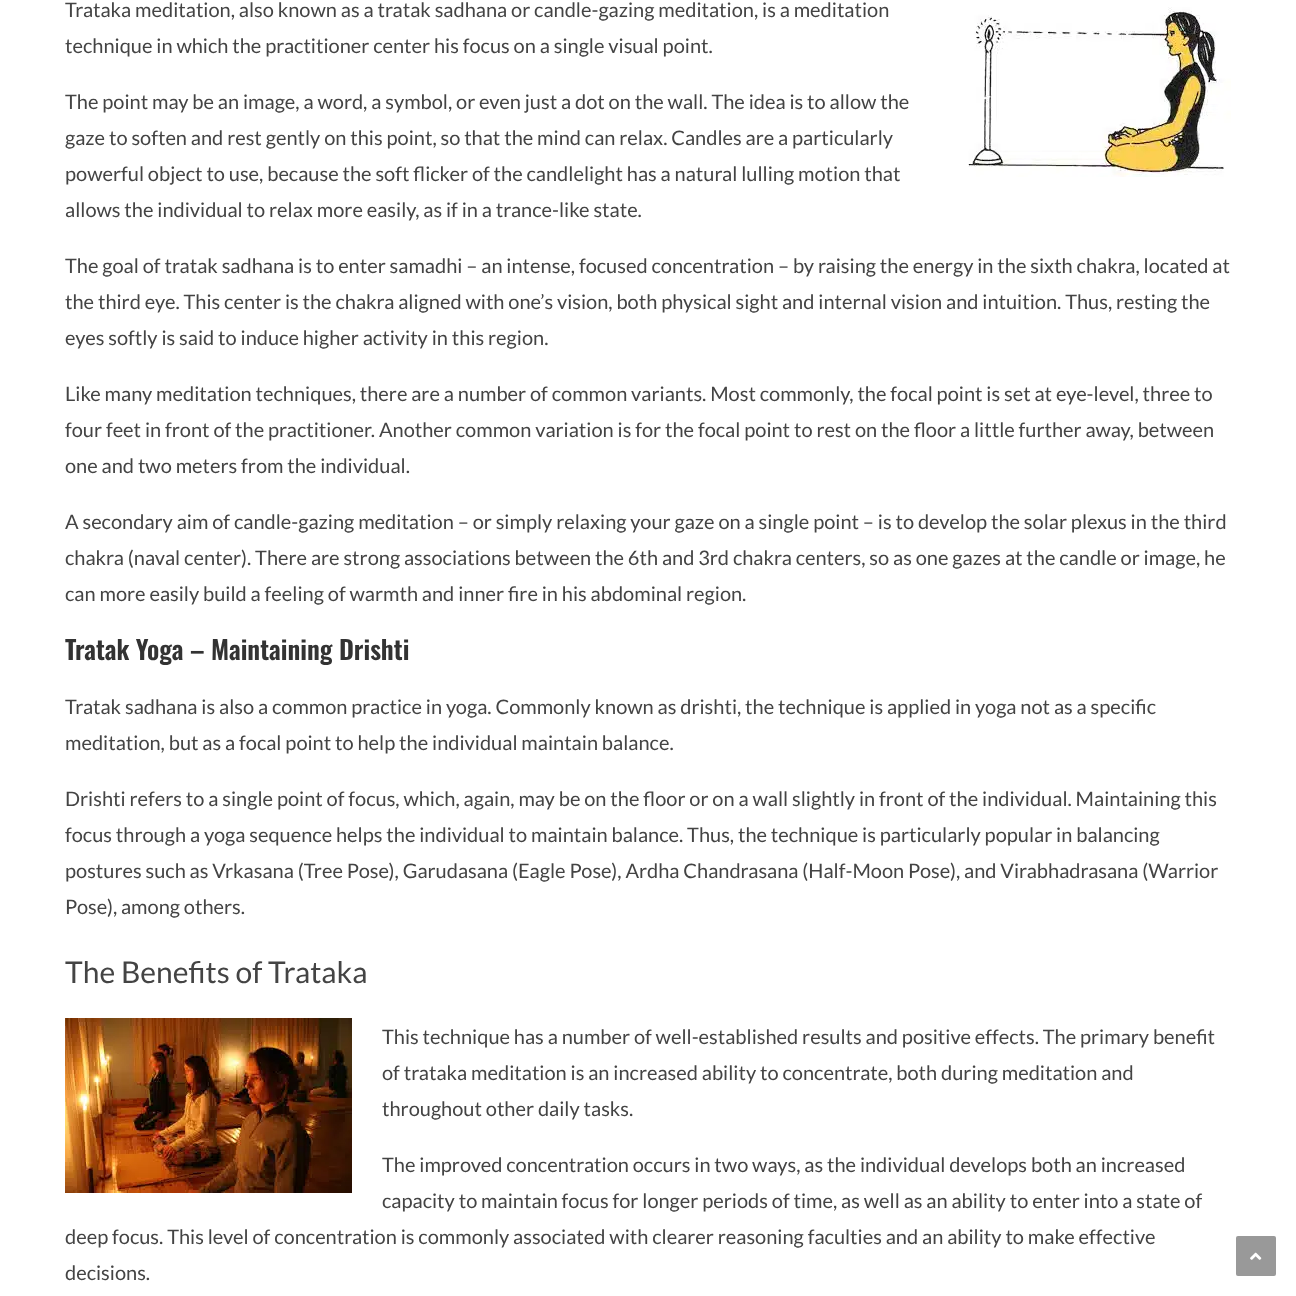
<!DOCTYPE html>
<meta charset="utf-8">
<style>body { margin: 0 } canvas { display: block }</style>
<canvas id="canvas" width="1296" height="1296"></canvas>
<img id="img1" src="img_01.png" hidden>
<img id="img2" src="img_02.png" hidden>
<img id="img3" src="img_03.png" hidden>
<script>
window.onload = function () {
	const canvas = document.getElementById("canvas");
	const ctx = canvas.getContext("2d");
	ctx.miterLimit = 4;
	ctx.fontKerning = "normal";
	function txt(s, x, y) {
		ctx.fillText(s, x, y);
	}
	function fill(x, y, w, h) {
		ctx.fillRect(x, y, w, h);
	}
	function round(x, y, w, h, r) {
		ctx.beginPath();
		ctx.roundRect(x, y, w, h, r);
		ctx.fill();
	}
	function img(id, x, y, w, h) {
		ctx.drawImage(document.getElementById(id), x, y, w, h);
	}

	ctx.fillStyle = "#FFFFFF";
	fill(0, 0, 1296, 1296);
	img("img1", 968, 7, 263, 170);
	img("img2", 65, 1018, 287, 175);
	ctx.fillStyle = "#999999";
	round(1236, 1236, 40, 40, 2);
	img("img3", 1250, 1252, 12, 8);
	ctx.font = "20px Lato";
	ctx.fillStyle = "#444444";
	txt("Trataka meditation, also known as a tratak sadhana or candle-gazing meditation, is a meditation", 65, 17);
	txt("technique in which the practitioner center his focus on a single visual point.", 65, 53);
	txt("The point may be an image, a word, a symbol, or even just a dot on the wall. The idea is to allow the", 65, 109);
	txt("gaze to soften and rest gently on this point, so that the mind can relax. Candles are a particularly", 65, 145);
	txt("powerful object to use, because the soft flicker of the candlelight has a natural lulling motion that", 65, 181);
	txt("allows the individual to relax more easily, as if in a trance-like state.", 65, 217);
	txt("The goal of tratak sadhana is to enter samadhi – an intense, focused concentration – by raising the energy in the sixth chakra, located at", 65, 273);
	txt("the third eye. This center is the chakra aligned with one’s vision, both physical sight and internal vision and intuition. Thus, resting the", 65, 309);
	txt("eyes softly is said to induce higher activity in this region.", 65, 345);
	txt("Like many meditation techniques, there are a number of common variants. Most commonly, the focal point is set at eye-level, three to", 65, 401);
	txt("four feet in front of the practitioner. Another common variation is for the focal point to rest on the floor a little further away, between", 65, 437);
	txt("one and two meters from the individual.", 65, 473);
	txt("A secondary aim of candle-gazing meditation – or simply relaxing your gaze on a single point – is to develop the solar plexus in the third", 65, 529);
	txt("chakra (naval center). There are strong associations between the 6th and 3rd chakra centers, so as one gazes at the candle or image, he", 65, 565);
	txt("can more easily build a feeling of warmth and inner fire in his abdominal region.", 65, 601);
	ctx.font = "600 26px Oswald";
	ctx.fillStyle = "#333333";
	txt("Tratak Yoga – Maintaining Drishti", 65, 660);
	ctx.font = "20px Lato";
	ctx.fillStyle = "#444444";
	txt("Tratak sadhana is also a common practice in yoga. Commonly known as drishti, the technique is applied in yoga not as a specific", 65, 714);
	txt("meditation, but as a focal point to help the individual maintain balance.", 65, 750);
	txt("Drishti refers to a single point of focus, which, again, may be on the floor or on a wall slightly in front of the individual. Maintaining this", 65, 806);
	txt("focus through a yoga sequence helps the individual to maintain balance. Thus, the technique is particularly popular in balancing", 65, 842);
	txt("postures such as Vrkasana (Tree Pose), Garudasana (Eagle Pose), Ardha Chandrasana (Half-Moon Pose), and Virabhadrasana (Warrior", 65, 878);
	txt("Pose), among others.", 65, 914);
	ctx.font = "30px Lato";
	txt("The Benefits of Trataka", 65, 983);
	ctx.font = "20px Lato";
	txt("This technique has a number of well-established results and positive effects. The primary benefit", 382, 1044);
	txt("of trataka meditation is an increased ability to concentrate, both during meditation and", 382, 1080);
	txt("throughout other daily tasks.", 382, 1116);
	txt("The improved concentration occurs in two ways, as the individual develops both an increased", 382, 1172);
	txt("capacity to maintain focus for longer periods of time, as well as an ability to enter into a state of", 382, 1208);
	txt("deep focus. This level of concentration is commonly associated with clearer reasoning faculties and an ability to make effective", 65, 1244);
	txt("decisions.", 65, 1280);
};
</script>
